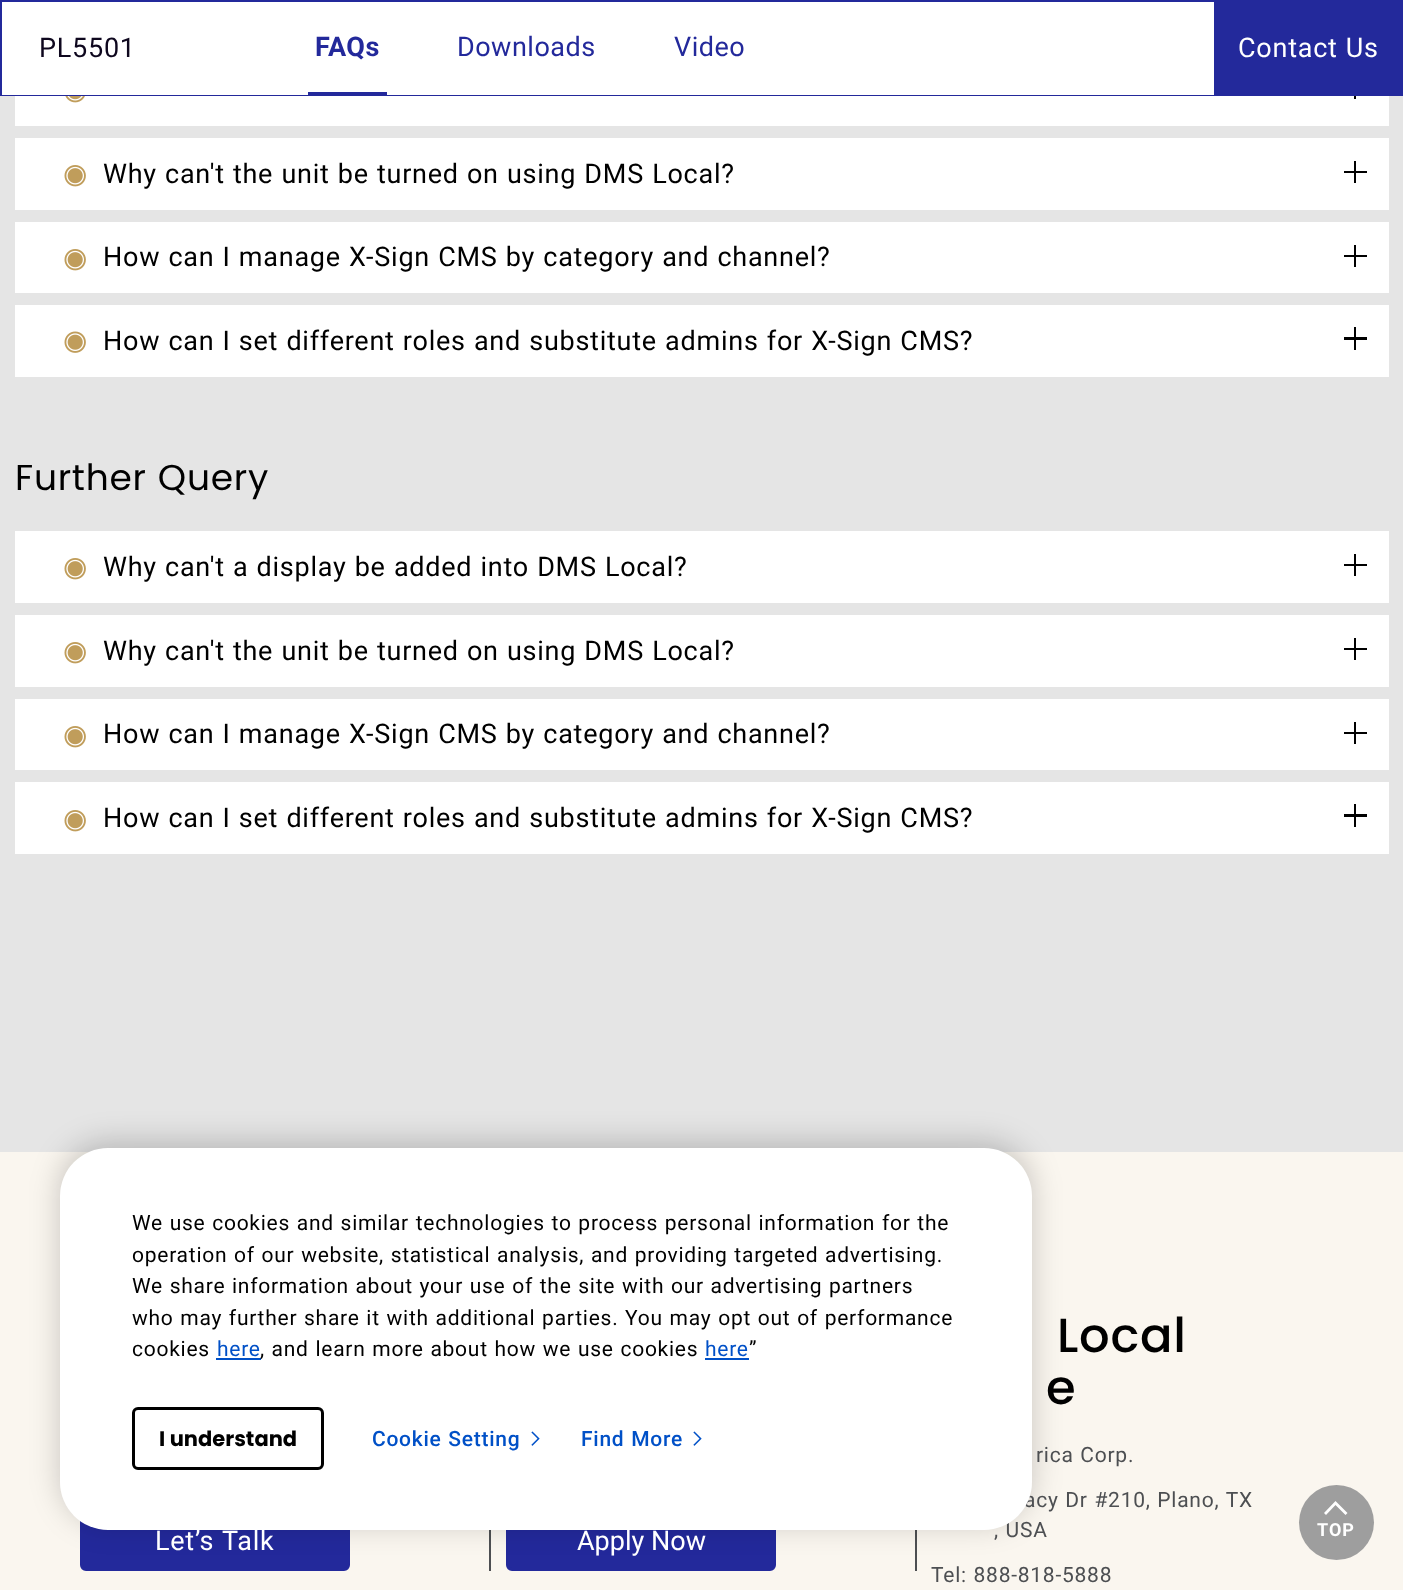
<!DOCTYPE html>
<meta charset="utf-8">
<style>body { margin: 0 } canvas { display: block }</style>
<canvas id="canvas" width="1403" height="1590"></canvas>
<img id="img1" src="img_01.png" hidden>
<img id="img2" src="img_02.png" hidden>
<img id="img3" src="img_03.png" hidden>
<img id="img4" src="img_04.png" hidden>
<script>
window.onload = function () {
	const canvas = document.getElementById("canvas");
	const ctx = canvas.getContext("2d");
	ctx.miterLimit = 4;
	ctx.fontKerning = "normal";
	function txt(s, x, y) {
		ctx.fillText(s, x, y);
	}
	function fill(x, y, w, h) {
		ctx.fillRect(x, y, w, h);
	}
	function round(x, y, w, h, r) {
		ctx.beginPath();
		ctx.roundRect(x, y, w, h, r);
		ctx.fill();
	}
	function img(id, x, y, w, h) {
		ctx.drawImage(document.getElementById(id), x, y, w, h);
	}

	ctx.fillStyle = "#FAF6EF";
	fill(0, 0, 1403, 1590);
	ctx.strokeStyle = "#23299B";
	ctx.lineWidth = 2;
	ctx.strokeRect(1, 1, 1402, 94);
	ctx.fillStyle = "#FFFFFF";
	fill(2, 2, 1212, 93);
	ctx.fillStyle = "#23299B";
	fill(308, 92, 79, 3);
	fill(1214, 2, 188, 92);
	ctx.fillStyle = "#E5E5E5";
	fill(0, 96, 1403, 1056);
	ctx.fillStyle = "#FFFFFF";
	fill(15, 96, 1374, 30);
	img("img1", 65, 96, 20, 7);
	ctx.fillStyle = "#000000";
	fill(1354, 96, 2, 3);
	ctx.fillStyle = "#FFFFFF";
	fill(15, 138, 1374, 72);
	img("img2", 64, 165, 22, 22);
	ctx.fillStyle = "#000000";
	fill(1354, 161, 2, 22);
	fill(1344, 171, 23, 2);
	ctx.fillStyle = "#FFFFFF";
	fill(15, 222, 1374, 71);
	img("img2", 64, 249, 22, 22);
	ctx.fillStyle = "#000000";
	fill(1354, 245, 2, 22);
	fill(1344, 255, 23, 2);
	ctx.fillStyle = "#FFFFFF";
	fill(15, 305, 1374, 72);
	img("img3", 64, 331, 22, 22);
	ctx.fillStyle = "#000000";
	fill(1354, 327, 2, 23);
	fill(1344, 337, 23, 3);
	ctx.fillStyle = "#FFFFFF";
	fill(15, 531, 1374, 72);
	img("img2", 64, 558, 22, 22);
	ctx.fillStyle = "#000000";
	fill(1354, 554, 2, 22);
	fill(1344, 564, 23, 2);
	ctx.fillStyle = "#FFFFFF";
	fill(15, 615, 1374, 72);
	img("img2", 64, 642, 22, 22);
	ctx.fillStyle = "#000000";
	fill(1354, 638, 2, 22);
	fill(1344, 648, 23, 2);
	ctx.fillStyle = "#FFFFFF";
	fill(15, 699, 1374, 71);
	img("img2", 64, 726, 22, 22);
	ctx.fillStyle = "#000000";
	fill(1354, 722, 2, 22);
	fill(1344, 732, 23, 2);
	ctx.fillStyle = "#FFFFFF";
	fill(15, 782, 1374, 72);
	img("img2", 64, 810, 22, 22);
	ctx.fillStyle = "#000000";
	fill(1354, 804, 2, 23);
	fill(1344, 814, 23, 3);
	ctx.fillStyle = "#23299B";
	ctx.beginPath();
	ctx.roundRect(81.5, 1512.5, 267, 57, 4.5);
	ctx.fill();
	ctx.lineWidth = 3;
	ctx.stroke();
	ctx.fillStyle = "#4D4F52";
	fill(489, 1530, 2, 41);
	ctx.fillStyle = "#23299B";
	ctx.beginPath();
	ctx.roundRect(507.5, 1512.5, 267, 57, 4.5);
	ctx.fill();
	ctx.stroke();
	ctx.fillStyle = "#4D4F52";
	fill(915, 1530, 2, 41);
	ctx.fillStyle = "rgba(0, 0, 0, 0.2)";
	ctx.filter = "blur(15px)";
	ctx.beginPath();
	ctx.roundRect(60, 1142, 972, 382, 48);
	ctx.fill();
	ctx.filter = "none";
	ctx.fillStyle = "#9E9E9E";
	ctx.beginPath();
	ctx.arc(1336.5, 1522.5, 37.5, 0, Math.PI * 2);
	ctx.fill();
	ctx.fillStyle = "#FFFFFF";
	ctx.beginPath();
	ctx.moveTo(1335.5, 1505);
	ctx.lineTo(1326, 1515);
	ctx.lineTo(1324, 1513);
	ctx.lineTo(1335.5, 1501);
	ctx.lineTo(1347.5, 1513);
	ctx.lineTo(1345.5, 1515);
	ctx.closePath();
	ctx.fill("evenodd");
	ctx.letterSpacing = "0.75px";
	ctx.font = "27px Roboto";
	ctx.fillStyle = "#0E071E";
	txt("PL5501", 39, 57);
	ctx.letterSpacing = "0.5px";
	ctx.font = "bold 27px Roboto";
	ctx.fillStyle = "#23299B";
	txt("FAQs", 315, 56);
	ctx.font = "27px Roboto";
	txt("Downloads", 457, 56);
	txt("Video", 674, 56);
	ctx.letterSpacing = "0.75px";
	ctx.wordSpacing = "0.75px";
	ctx.fillStyle = "#FFFFFF";
	txt("Contact Us", 1238, 57);
	ctx.fillStyle = "#000000";
	txt("Why can't the unit be turned on using DMS Local?", 103, 183);
	txt("How can I manage X-Sign CMS by category and channel?", 103, 266);
	txt("How can I set different roles and substitute admins for X-Sign CMS?", 103, 350);
	ctx.font = "36px Poppins";
	txt("Further Query", 15, 490);
	ctx.font = "27px Roboto";
	txt("Why can't a display be added into DMS Local?", 103, 576);
	txt("Why can't the unit be turned on using DMS Local?", 103, 660);
	txt("How can I manage X-Sign CMS by category and channel?", 103, 743);
	txt("How can I set different roles and substitute admins for X-Sign CMS?", 103, 827);
	ctx.fillStyle = "#FFFFFF";
	txt("Let’s Talk", 155, 1550);
	ctx.letterSpacing = "0px";
	ctx.wordSpacing = "0px";
	txt("Apply Now", 577, 1550);
	ctx.letterSpacing = "0.75px";
	ctx.wordSpacing = "0.75px";
	ctx.font = "500 48px Poppins";
	ctx.fillStyle = "#000000";
	txt("Local", 1057, 1352);
	ctx.wordSpacing = "0px";
	txt("e", 1046, 1404);
	ctx.wordSpacing = "0.75px";
	ctx.font = "21px Roboto";
	ctx.fillStyle = "#4D4F52";
	txt("rica Corp.", 1036, 1462);
	txt("acy Dr #210, Plano, TX", 1024, 1507);
	txt(", USA", 994, 1537);
	ctx.fillStyle = "#FFFFFF";
	round(60, 1148, 972, 382, 48);
	img("img4", 693, 1431, 9, 15);
	ctx.font = "500 21px Roboto";
	ctx.fillStyle = "#0050C7";
	txt("Find More", 581, 1446);
	img("img4", 531, 1431, 9, 15);
	txt("Cookie Setting", 372, 1446);
	ctx.beginPath();
	ctx.roundRect(133.5, 1408.5, 189, 60, 4.5);
	ctx.strokeStyle = "#000000";
	ctx.stroke();
	ctx.letterSpacing = "0px";
	ctx.wordSpacing = "0px";
	ctx.font = "bold 21px Poppins";
	ctx.fillStyle = "#000000";
	txt("I understand", 159, 1446);
	ctx.letterSpacing = "0.75px";
	ctx.font = "21px Roboto";
	txt("”", 749, 1356);
	ctx.fillStyle = "#0050C7";
	txt("here", 705, 1356);
	fill(705, 1358, 44, 2);
	fill(216, 1358, 45, 2);
	ctx.wordSpacing = "0.75px";
	ctx.fillStyle = "#000000";
	txt(", and learn more about how we use cookies", 260, 1356);
	ctx.wordSpacing = "0px";
	ctx.fillStyle = "#0050C7";
	txt("here", 217, 1356);
	ctx.fillStyle = "#000000";
	txt("cookies", 132, 1356);
	ctx.wordSpacing = "0.75px";
	txt("who may further share it with additional parties. You may opt out of performance", 132, 1325);
	txt("We share information about your use of the site with our advertising partners", 132, 1293);
	txt("operation of our website, statistical analysis, and providing targeted advertising.", 132, 1262);
	txt("We use cookies and similar technologies to process personal information for the", 132, 1230);
	ctx.fillStyle = "#4D4F52";
	txt("Tel: 888-818-5888", 931, 1582);
	ctx.letterSpacing = "1px";
	ctx.wordSpacing = "0px";
	ctx.font = "bold 18px Roboto";
	ctx.fillStyle = "#FFFFFF";
	txt("TOP", 1317, 1536);
};
</script>
